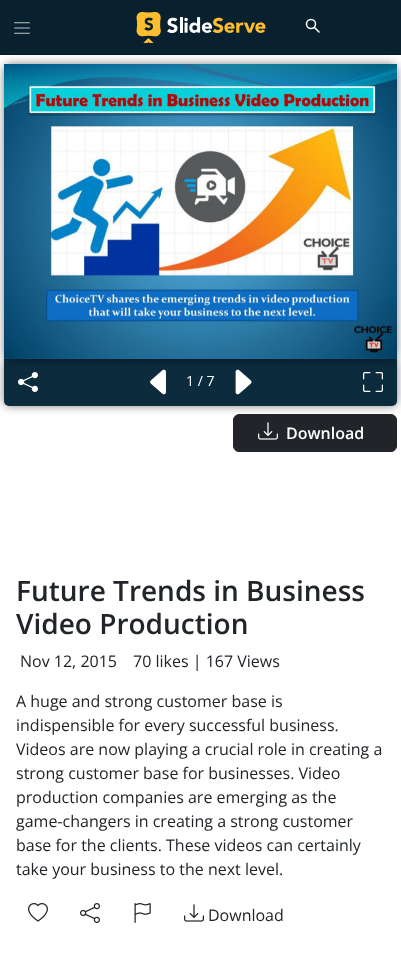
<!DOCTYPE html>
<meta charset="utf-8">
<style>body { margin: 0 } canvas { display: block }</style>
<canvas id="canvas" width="401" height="959"></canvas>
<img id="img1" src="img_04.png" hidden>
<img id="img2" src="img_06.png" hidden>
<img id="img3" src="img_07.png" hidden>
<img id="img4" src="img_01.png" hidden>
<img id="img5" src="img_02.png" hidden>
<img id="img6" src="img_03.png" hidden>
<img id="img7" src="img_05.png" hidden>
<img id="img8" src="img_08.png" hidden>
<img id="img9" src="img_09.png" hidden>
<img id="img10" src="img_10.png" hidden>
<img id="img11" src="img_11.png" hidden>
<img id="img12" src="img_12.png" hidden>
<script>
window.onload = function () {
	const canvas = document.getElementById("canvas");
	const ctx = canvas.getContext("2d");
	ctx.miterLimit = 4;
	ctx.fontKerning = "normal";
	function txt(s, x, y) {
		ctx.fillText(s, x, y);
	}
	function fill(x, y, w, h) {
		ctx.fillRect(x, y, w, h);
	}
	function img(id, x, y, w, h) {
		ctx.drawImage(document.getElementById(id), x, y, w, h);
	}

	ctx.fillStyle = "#FFFFFF";
	fill(0, 0, 401, 959);
	ctx.fillStyle = "rgba(0, 0, 0, 0.5)";
	ctx.filter = "blur(5px)";
	ctx.beginPath();
	ctx.roundRect(4, 359, 393, 47, 5);
	ctx.fill();
	ctx.filter = "none";
	ctx.fillStyle = "#0C2B3D";
	ctx.beginPath();
	ctx.roundRect(4, 359, 393, 47, [0, 0, 5, 5]);
	ctx.fill();
	img("img1", 18, 372, 20, 20);
	img("img2", 235, 369, 17, 26);
	img("img3", 363, 372, 20, 20);
	ctx.fillStyle = "rgba(0, 0, 0, 0.5)";
	ctx.filter = "blur(5px)";
	ctx.beginPath();
	ctx.roundRect(4, 64, 393, 295, 7);
	ctx.fill();
	ctx.filter = "none";
	ctx.fillStyle = "#09212E";
	fill(0, 0, 401, 54);
	ctx.fillStyle = "#061924";
	fill(0, 54, 401, 1);
	img("img4", 14, 22, 16, 12);
	img("img5", 136, 11, 130, 32);
	ctx.beginPath();
	ctx.arc(311, 24, 4.5, 0, Math.PI * 2);
	ctx.strokeStyle = "#FFFFFF";
	ctx.lineWidth = 1.5;
	ctx.stroke();
	ctx.beginPath();
	ctx.moveTo(319, 32);
	ctx.lineTo(314.5, 27.5);
	ctx.lineCap = "round";
	ctx.lineJoin = "round";
	ctx.stroke();
	img("img6", 4, 64, 393, 295);
	img("img7", 150, 369, 16, 26);
	ctx.fillStyle = "#212529";
	ctx.beginPath();
	ctx.roundRect(233.5, 414.5, 163, 37, 5.5);
	ctx.fill();
	ctx.strokeStyle = "#212529";
	ctx.lineWidth = 1;
	ctx.lineJoin = "miter";
	ctx.stroke();
	img("img8", 258, 422, 20, 18);
	img("img9", 28, 903, 20, 19);
	img("img10", 80, 903, 20, 20);
	img("img11", 134, 903, 17, 20);
	img("img12", 184, 904, 20, 18);
	ctx.font = "14px Open Sans";
	ctx.fillStyle = "#FFFFFF";
	txt("1 / 7", 186, 386);
	ctx.font = "600 16px Open Sans";
	txt("Download", 286, 439);
	ctx.font = "600 28px Open Sans";
	ctx.fillStyle = "#212529";
	txt("Future Trends in Business", 16, 601);
	txt("Video Production", 16, 634);
	ctx.font = "16px Open Sans";
	txt("Nov 12, 2015", 20, 667);
	txt("70 likes | 167 Views", 133, 667);
	txt("A huge and strong customer base is", 16, 707);
	txt("indispensible for every successful business.", 16, 731);
	txt("Videos are now playing a crucial role in creating a", 16, 755);
	txt("strong customer base for businesses. Video", 16, 779);
	txt("production companies are emerging as the", 16, 803);
	txt("game-changers in creating a strong customer", 16, 827);
	txt("base for the clients. These videos can certainly", 16, 851);
	txt("take your business to the next level.", 16, 875);
	txt("Download", 208, 921);
};
</script>
